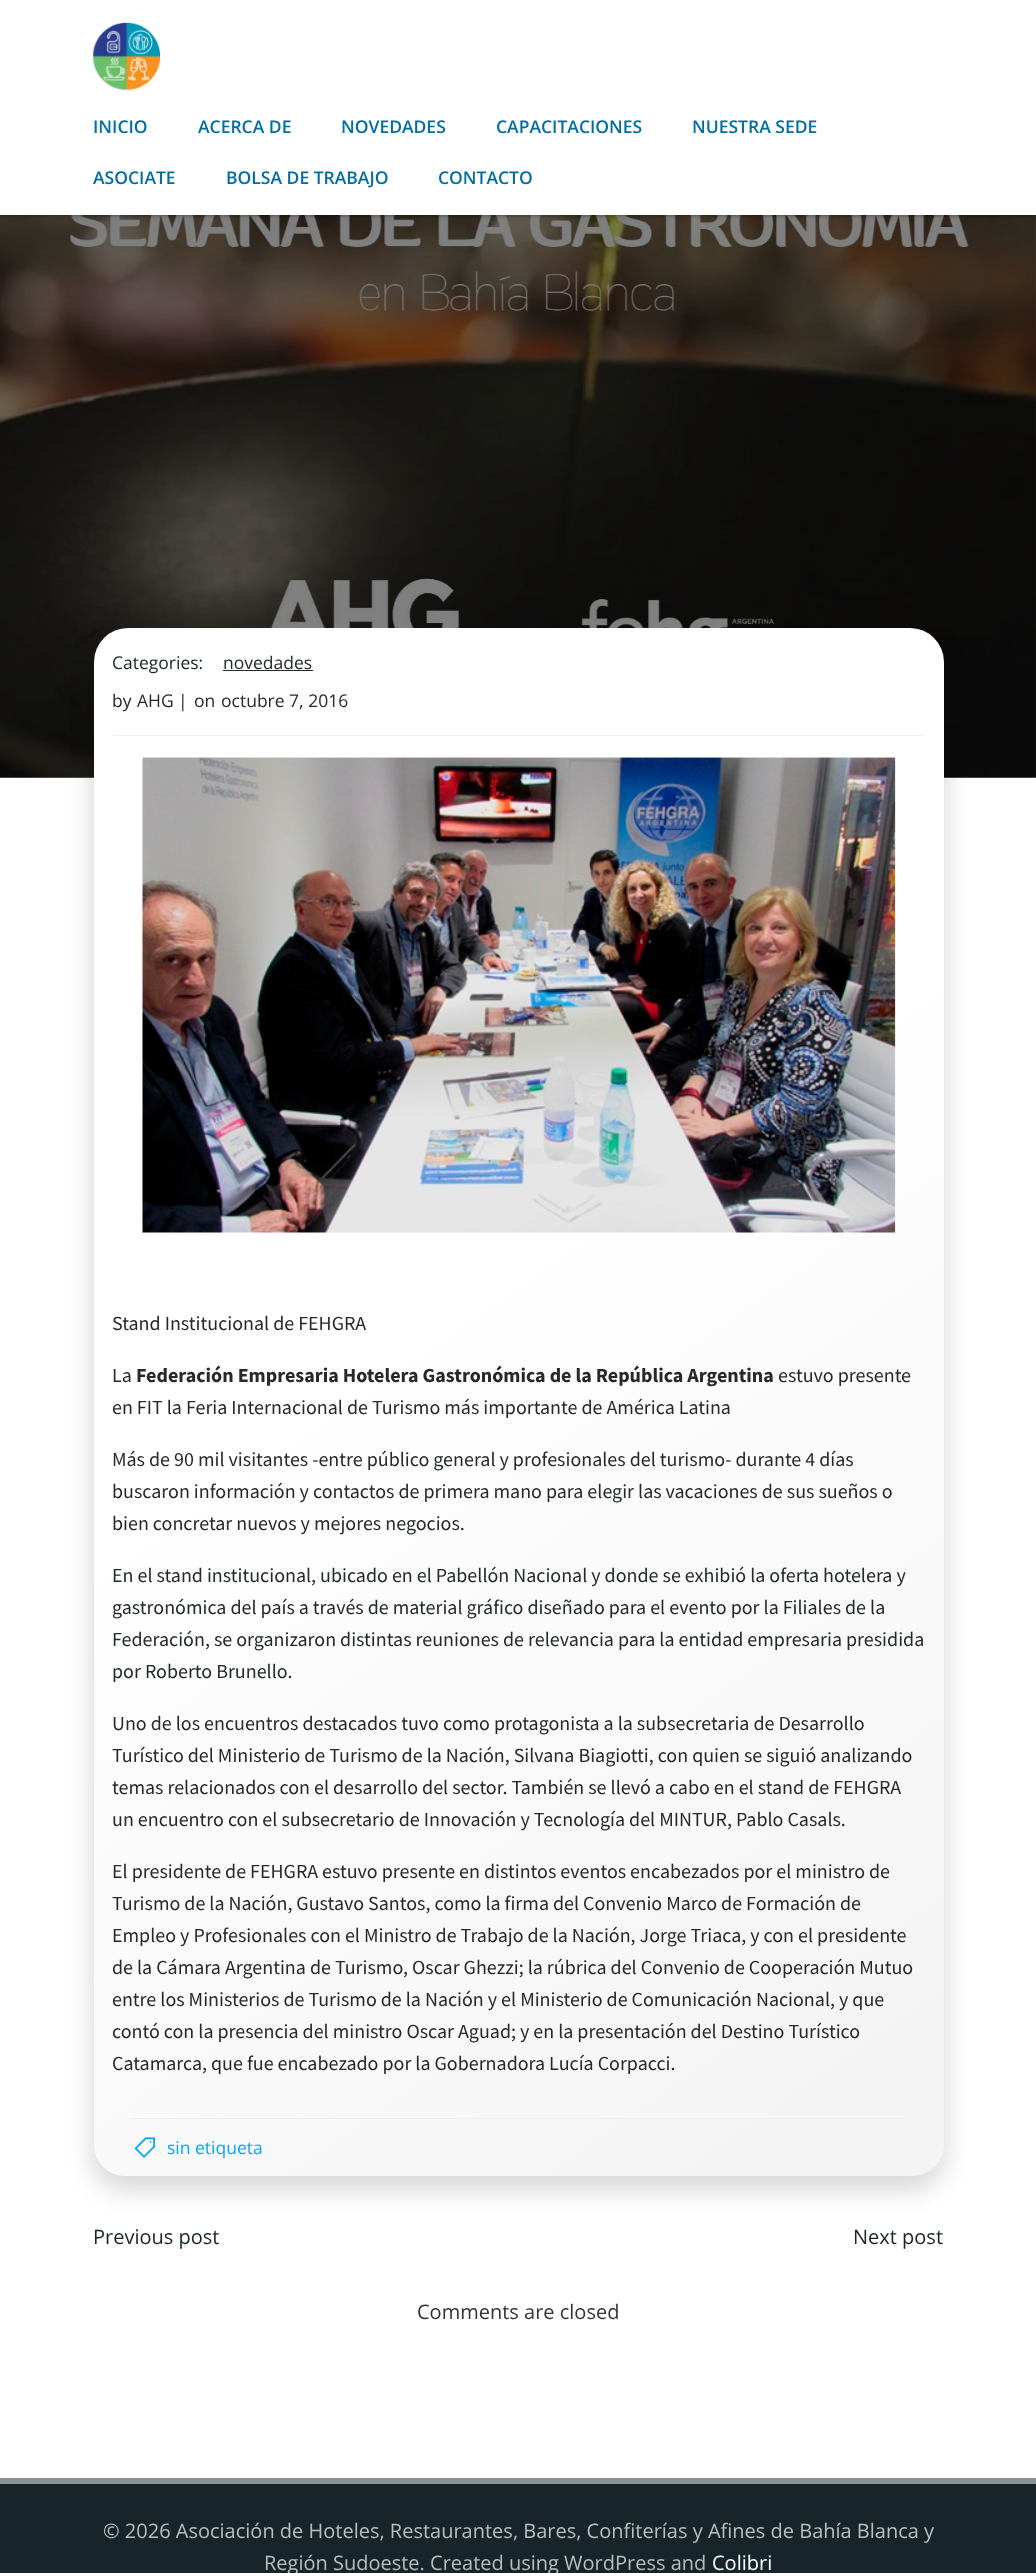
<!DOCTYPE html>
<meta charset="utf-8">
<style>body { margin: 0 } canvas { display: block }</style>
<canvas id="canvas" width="1036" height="2573"></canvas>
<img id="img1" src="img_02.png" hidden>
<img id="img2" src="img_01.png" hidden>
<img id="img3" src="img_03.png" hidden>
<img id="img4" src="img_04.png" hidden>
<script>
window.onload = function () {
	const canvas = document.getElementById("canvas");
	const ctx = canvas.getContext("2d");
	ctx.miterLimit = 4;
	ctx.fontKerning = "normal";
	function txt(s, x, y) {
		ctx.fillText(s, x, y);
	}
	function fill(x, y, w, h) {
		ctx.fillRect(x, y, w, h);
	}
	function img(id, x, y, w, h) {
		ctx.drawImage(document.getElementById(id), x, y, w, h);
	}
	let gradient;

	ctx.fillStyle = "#FFFFFF";
	fill(0, 0, 1036, 2573);
	ctx.fillStyle = "#808080";
	fill(0, 215, 1036, 563);
	img("img1", 0, 215, 1036, 563);
	ctx.fillStyle = "rgba(0, 0, 0, 0.5)";
	ctx.filter = "blur(2.5px)";
	ctx.beginPath();
	ctx.rect(0, 0, 1036, 215);
	ctx.fill();
	ctx.filter = "none";
	ctx.fillStyle = "#FFFFFF";
	fill(0, 0, 1036, 215);
	img("img2", 92, 22, 69, 69);
	ctx.save();
	ctx.beginPath();
	ctx.rect(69, 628, 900, 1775);
	ctx.clip();
	ctx.fillStyle = "rgba(0, 0, 0, 0.15)";
	ctx.filter = "blur(12.5px)";
	ctx.beginPath();
	ctx.roundRect(91, 638, 855, 1553, 36);
	ctx.fill();
	ctx.filter = "none";
	ctx.restore();
	gradient = ctx.createLinearGradient(15, 683, 1022, 2121);
	gradient.addColorStop(0.42, "#FFFFFF");
	gradient.addColorStop(1, "#F3F3F3");
	ctx.fillStyle = gradient;
	ctx.beginPath();
	ctx.roundRect(94, 628, 850, 1548, [34, 34, 31, 31]);
	ctx.fill();
	ctx.fillStyle = "#EEEEEE";
	fill(113, 735, 812, 1);
	ctx.fillStyle = "#25292A";
	fill(223, 670, 90, 1);
	img("img3", 142, 757, 754, 476);
	ctx.fillStyle = "#EEEEEE";
	fill(131, 2118, 775, 1);
	img("img4", 134, 2137, 21, 21);
	ctx.fillStyle = "#17252A";
	fill(0, 2484, 1036, 89);
	ctx.fillStyle = "#8B9295";
	fill(0, 2478, 1036, 6);
	ctx.font = "600 17.5px Open Sans";
	ctx.fillStyle = "#026E9F";
	txt("INICIO", 93, 133);
	txt("ACERCA DE", 198, 133);
	txt("NOVEDADES", 341, 133);
	txt("CAPACITACIONES", 496, 133);
	txt("NUESTRA SEDE", 692, 133);
	txt("ASOCIATE", 93, 184);
	txt("BOLSA DE TRABAJO", 226, 184);
	txt("CONTACTO", 438, 184);
	ctx.font = "17.5px Open Sans";
	ctx.fillStyle = "#17252A";
	txt("Categories:", 112, 669);
	ctx.fillStyle = "#25292A";
	txt("novedades", 223, 669);
	txt("by", 112, 707);
	txt("AHG", 137, 707);
	ctx.fillStyle = "#17252A";
	txt("|", 178, 707);
	ctx.fillStyle = "#25292A";
	txt("on", 194, 707);
	txt("octubre 7, 2016", 221, 707);
	ctx.font = "20px Source Sans Pro";
	txt("Stand Institucional de FEHGRA", 112, 1330);
	txt("La", 112, 1382);
	ctx.font = "bold 20px Source Sans Pro";
	txt("Federación Empresaria Hotelera Gastronómica de la República Argentina", 136, 1382);
	ctx.font = "20px Source Sans Pro";
	txt("estuvo presente", 778, 1382);
	txt("en FIT la Feria Internacional de Turismo más importante de América Latina", 112, 1414);
	txt("Más de 90 mil visitantes -entre público general y profesionales del turismo- durante 4 días", 112, 1466);
	txt("buscaron información y contactos de primera mano para elegir las vacaciones de sus sueños o", 112, 1498);
	txt("bien concretar nuevos y mejores negocios.", 112, 1530);
	txt("En el stand institucional, ubicado en el Pabellón Nacional y donde se exhibió la oferta hotelera y", 112, 1582);
	txt("gastronómica del país a través de material gráfico diseñado para el evento por la Filiales de la", 112, 1614);
	txt("Federación, se organizaron distintas reuniones de relevancia para la entidad empresaria presidida", 112, 1646);
	txt("por Roberto Brunello.", 112, 1678);
	txt("Uno de los encuentros destacados tuvo como protagonista a la subsecretaria de Desarrollo", 112, 1730);
	txt("Turístico del Ministerio de Turismo de la Nación, Silvana Biagiotti, con quien se siguió analizando", 112, 1762);
	txt("temas relacionados con el desarrollo del sector. También se llevó a cabo en el stand de FEHGRA", 112, 1794);
	txt("un encuentro con el subsecretario de Innovación y Tecnología del MINTUR, Pablo Casals.", 112, 1826);
	txt("El presidente de FEHGRA estuvo presente en distintos eventos encabezados por el ministro de", 112, 1878);
	txt("Turismo de la Nación, Gustavo Santos, como la firma del Convenio Marco de Formación de", 112, 1910);
	txt("Empleo y Profesionales con el Ministro de Trabajo de la Nación, Jorge Triaca, y con el presidente", 112, 1942);
	txt("de la Cámara Argentina de Turismo, Oscar Ghezzi; la rúbrica del Convenio de Cooperación Mutuo", 112, 1974);
	txt("entre los Ministerios de Turismo de la Nación y el Ministerio de Comunicación Nacional, y que", 112, 2006);
	txt("contó con la presencia del ministro Oscar Aguad; y en la presentación del Destino Turístico", 112, 2038);
	txt("Catamarca, que fue encabezado por la Gobernadora Lucía Corpacci.", 112, 2070);
	ctx.font = "17.5px Open Sans";
	ctx.fillStyle = "#03A9F4";
	txt("sin etiqueta", 167, 2154);
	ctx.font = "20px Open Sans";
	ctx.fillStyle = "#17252A";
	txt("Previous post", 93, 2244);
	txt("Next post", 853, 2244);
	ctx.fillStyle = "#333333";
	txt("Comments are closed", 417, 2319);
	ctx.fillStyle = "#B9BEBF";
	txt("© 2026 Asociación de Hoteles, Restaurantes, Bares, Confiterías y Afines de Bahía Blanca y", 103, 2538);
	txt("Región Sudoeste. Created using WordPress and", 264, 2570);
	ctx.fillStyle = "#FFFFFF";
	txt("Colibri", 712, 2570);
};
</script>
